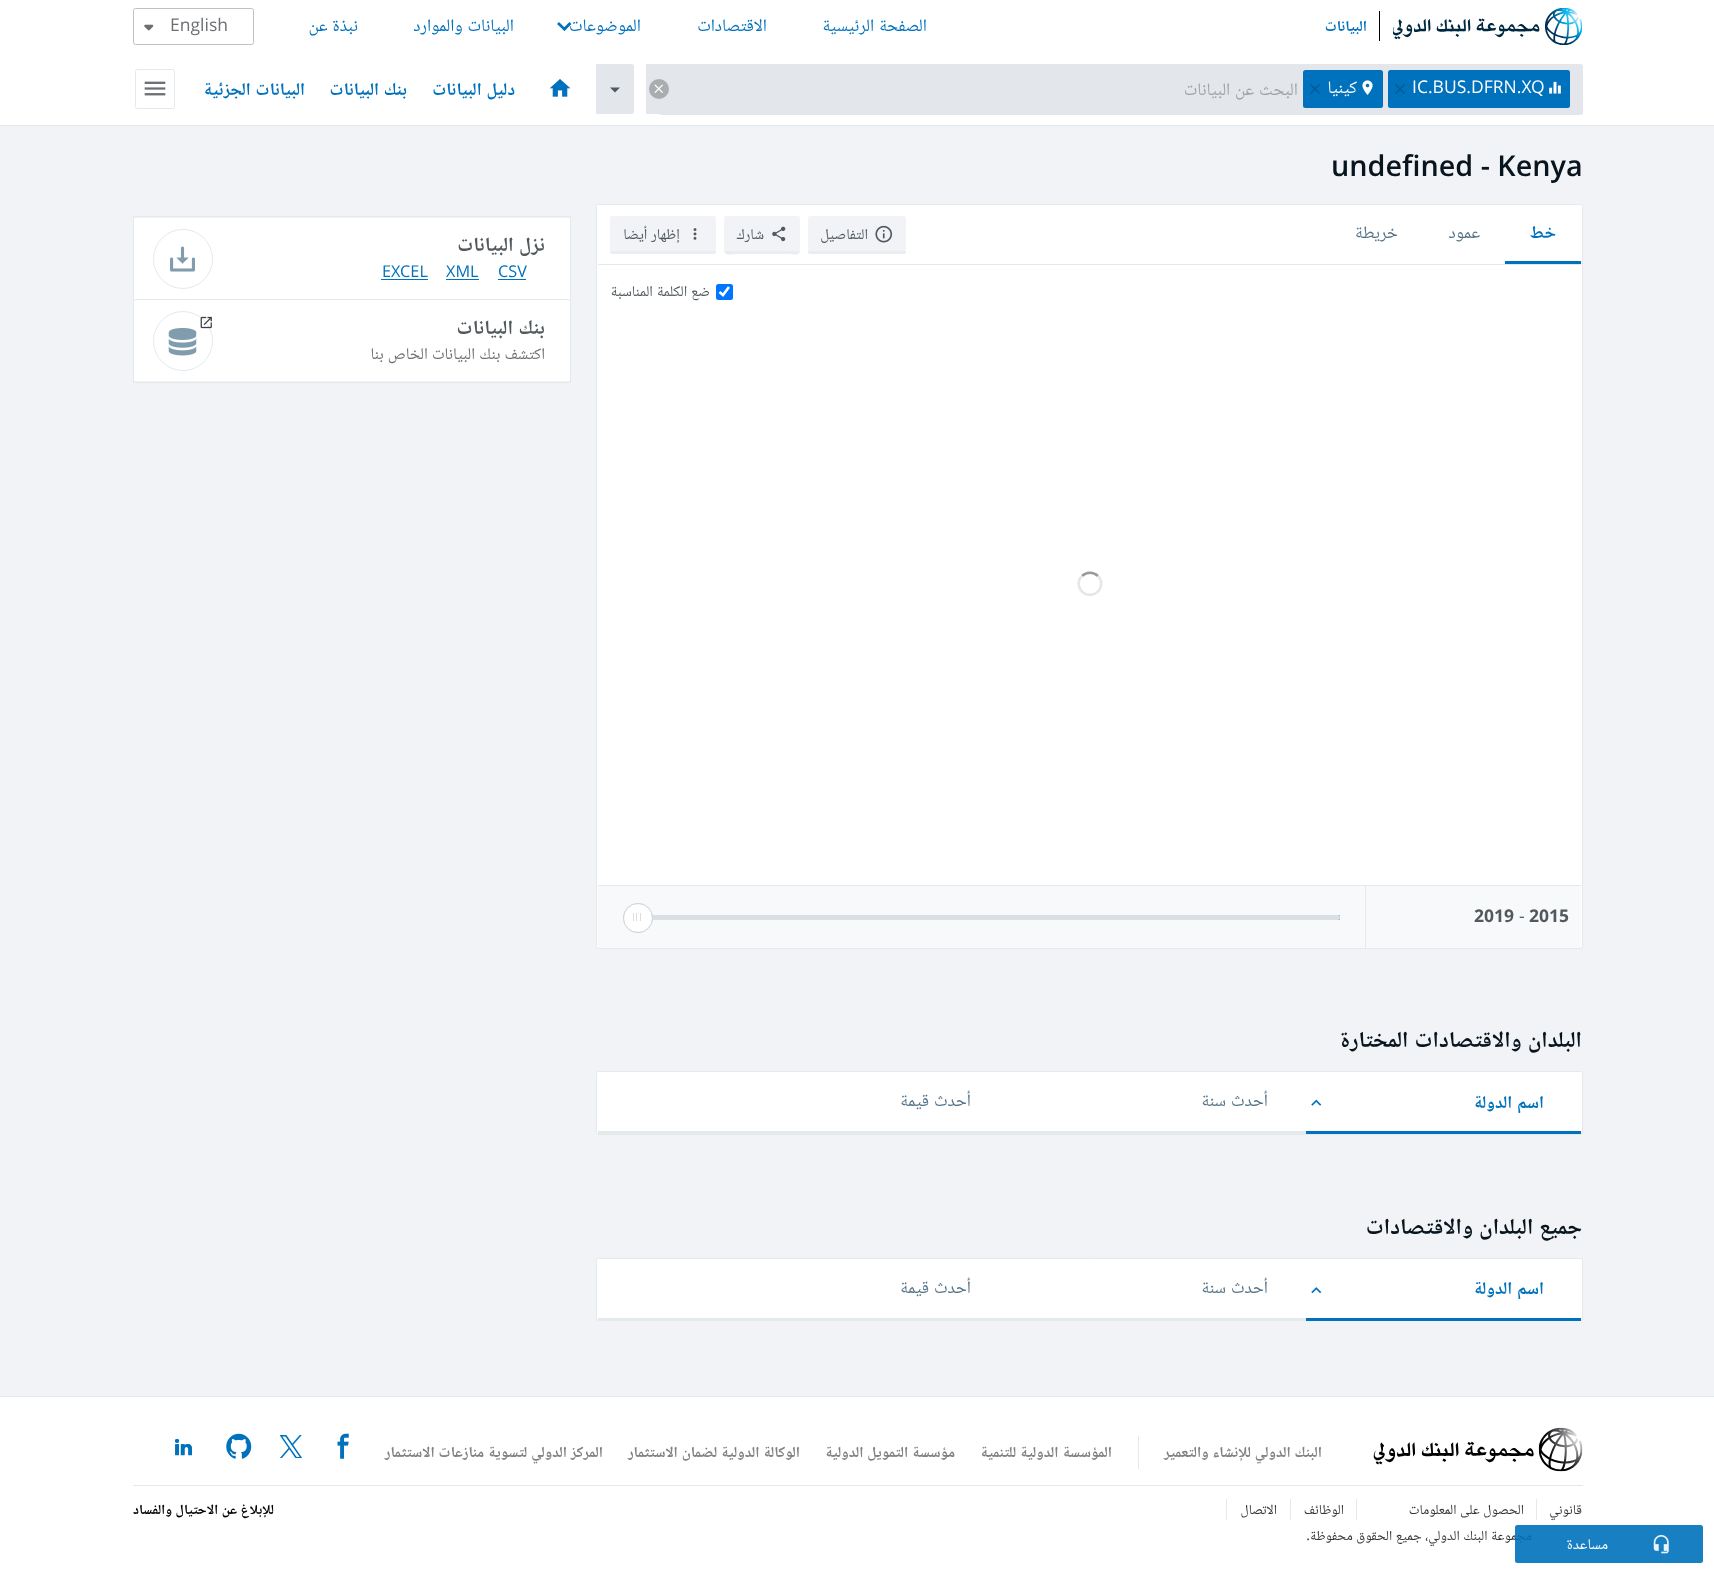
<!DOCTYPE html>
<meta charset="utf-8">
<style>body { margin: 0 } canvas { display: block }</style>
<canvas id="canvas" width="1714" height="1575"></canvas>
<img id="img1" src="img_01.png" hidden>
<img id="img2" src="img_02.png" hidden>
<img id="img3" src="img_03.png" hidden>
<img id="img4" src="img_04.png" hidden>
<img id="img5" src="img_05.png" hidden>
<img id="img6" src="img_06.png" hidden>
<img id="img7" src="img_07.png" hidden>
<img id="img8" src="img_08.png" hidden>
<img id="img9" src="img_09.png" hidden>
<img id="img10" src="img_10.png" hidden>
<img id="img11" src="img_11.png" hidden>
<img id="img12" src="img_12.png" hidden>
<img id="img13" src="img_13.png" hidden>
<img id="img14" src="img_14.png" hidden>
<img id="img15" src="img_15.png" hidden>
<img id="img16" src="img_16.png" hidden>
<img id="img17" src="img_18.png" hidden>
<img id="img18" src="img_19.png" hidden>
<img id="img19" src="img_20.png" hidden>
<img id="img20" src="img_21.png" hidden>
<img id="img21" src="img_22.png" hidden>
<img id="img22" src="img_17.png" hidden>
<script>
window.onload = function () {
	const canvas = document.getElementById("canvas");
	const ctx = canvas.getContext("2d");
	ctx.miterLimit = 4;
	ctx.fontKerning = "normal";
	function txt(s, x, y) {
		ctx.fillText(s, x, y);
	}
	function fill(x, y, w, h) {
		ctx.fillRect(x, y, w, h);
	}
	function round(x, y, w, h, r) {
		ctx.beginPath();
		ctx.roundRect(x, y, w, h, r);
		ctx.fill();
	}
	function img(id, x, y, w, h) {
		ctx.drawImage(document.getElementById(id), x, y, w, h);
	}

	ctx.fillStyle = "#F2F3F6";
	fill(0, 0, 1714, 1575);
	ctx.fillStyle = "#FFFFFF";
	fill(0, 0, 1714, 125);
	img("img1", 1393, 8, 190, 37);
	ctx.fillStyle = "#000000";
	fill(1379, 11, 1, 30);
	ctx.fillStyle = "#0071BC";
	ctx.beginPath();
	ctx.moveTo(569.5, 22);
	ctx.lineTo(571.5, 24);
	ctx.lineTo(564.5, 31);
	ctx.lineTo(562.5, 29);
	ctx.closePath();
	ctx.fill();
	ctx.beginPath();
	ctx.moveTo(559, 22);
	ctx.lineTo(566, 29);
	ctx.lineTo(564.5, 31);
	ctx.lineTo(557, 24);
	ctx.closePath();
	ctx.fill();
	img("img2", 144, 24, 10, 7);
	ctx.beginPath();
	ctx.roundRect(133.5, 8.5, 120, 36, 2);
	ctx.strokeStyle = "#C0C0C0";
	ctx.stroke();
	ctx.fillStyle = "#E4E9EC";
	fill(0, 125, 1714, 1);
	ctx.fillStyle = "#E3E6EB";
	round(659, 64, 924, 51, 2.5);
	ctx.fillStyle = "#0071BC";
	round(1388, 70, 182, 38, 2.5);
	img("img3", 1549, 81, 12, 13);
	img("img4", 1395, 84, 10, 10);
	round(1303, 70, 80, 38, 2.5);
	img("img5", 1362, 80, 11, 15);
	img("img4", 1310, 84, 10, 10);
	ctx.fillStyle = "#E3E6EB";
	ctx.beginPath();
	ctx.roundRect(646, 64, 25, 50, [0, 2.5, 2.5, 0]);
	ctx.fill();
	ctx.fillStyle = "#AAADB0";
	ctx.beginPath();
	ctx.arc(659, 89, 10, 0, Math.PI * 2);
	ctx.fill();
	img("img6", 654, 84, 9, 9);
	ctx.fillStyle = "#E3E6EB";
	ctx.beginPath();
	ctx.roundRect(596, 64, 38, 50, [0, 2.5, 2.5, 0]);
	ctx.fill();
	ctx.fillStyle = "#50595E";
	ctx.beginPath();
	ctx.moveTo(610, 87.5);
	ctx.lineTo(620, 87.5);
	ctx.lineTo(615, 92.5);
	ctx.closePath();
	ctx.fill();
	img("img7", 549, 79, 22, 18);
	ctx.beginPath();
	ctx.roundRect(135.5, 69.5, 39, 39, 2);
	ctx.strokeStyle = "#E4E9EC";
	ctx.stroke();
	img("img8", 144, 81, 22, 15);
	ctx.fillStyle = "#FFFFFF";
	ctx.beginPath();
	ctx.roundRect(596.5, 204.5, 986, 744, 2);
	ctx.fill();
	ctx.stroke();
	ctx.fillStyle = "#E4E9EC";
	fill(598, 264, 983, 1);
	ctx.fillStyle = "#0071BC";
	fill(1505, 261, 76, 3);
	ctx.fillStyle = "#EBECEF";
	ctx.beginPath();
	ctx.moveTo(808, 250);
	ctx.lineTo(808, 252);
	ctx.bezierCurveTo(808, 253, 809, 254, 810, 254);
	ctx.lineTo(904, 254);
	ctx.bezierCurveTo(905, 254, 906, 253, 906, 252);
	ctx.lineTo(906, 250);
	ctx.bezierCurveTo(906, 251, 905, 251, 904, 251);
	ctx.lineTo(810, 251);
	ctx.closePath();
	ctx.fill();
	ctx.fillStyle = "#F2F3F6";
	round(808, 216, 98, 35, 2.5);
	img("img9", 875, 225, 18, 18);
	ctx.fillStyle = "#EBECEF";
	ctx.beginPath();
	ctx.moveTo(724, 250);
	ctx.bezierCurveTo(724, 257, 732, 254, 738, 254);
	ctx.lineTo(786, 254);
	ctx.bezierCurveTo(796, 254, 800, 257, 800, 249);
	ctx.bezierCurveTo(800, 250, 799, 251, 798, 251);
	ctx.lineTo(726, 251);
	ctx.bezierCurveTo(725, 251, 724, 251, 724, 250);
	ctx.closePath();
	ctx.fill();
	ctx.fillStyle = "#F2F3F6";
	round(724, 216, 76, 35, 2.5);
	img("img10", 772, 226, 14, 16);
	ctx.fillStyle = "#EBECEF";
	ctx.beginPath();
	ctx.moveTo(610, 249);
	ctx.lineTo(610, 252);
	ctx.bezierCurveTo(610, 253, 611, 254, 612, 254);
	ctx.lineTo(714, 254);
	ctx.bezierCurveTo(715, 254, 716, 253, 716, 252);
	ctx.lineTo(716, 250);
	ctx.bezierCurveTo(716, 251, 715, 251, 714, 251);
	ctx.lineTo(612, 251);
	ctx.bezierCurveTo(611, 251, 610, 250, 610, 249);
	ctx.closePath();
	ctx.fill();
	ctx.fillStyle = "#F2F3F6";
	round(610, 216, 106, 35, 2.5);
	img("img11", 693, 228, 4, 12);
	ctx.fillStyle = "#0075FF";
	round(716, 284, 17, 16, 2.5);
	ctx.beginPath();
	ctx.moveTo(719.5, 292);
	ctx.lineTo(723, 295);
	ctx.lineTo(729, 287);
	ctx.strokeStyle = "#FFFFFF";
	ctx.lineWidth = 2.6;
	ctx.stroke();
	ctx.beginPath();
	ctx.moveTo(1082, 576);
	ctx.bezierCurveTo(1086.5, 571.5, 1093.5, 571.5, 1098, 576);
	ctx.strokeStyle = "#999999";
	ctx.lineWidth = 2.5;
	ctx.stroke();
	ctx.beginPath();
	ctx.moveTo(1098, 576);
	ctx.bezierCurveTo(1100, 578, 1101.5, 581, 1101, 584);
	ctx.bezierCurveTo(1101, 597, 1081.5, 599, 1079, 586);
	ctx.bezierCurveTo(1078, 582.5, 1079.5, 578.5, 1082, 576);
	ctx.strokeStyle = "#E6E6E6";
	ctx.stroke();
	ctx.fillStyle = "#F8F9FA";
	fill(598, 886, 983, 62);
	ctx.fillStyle = "#E4E9EC";
	fill(598, 885, 983, 1);
	fill(1365, 886, 1, 62);
	ctx.fillStyle = "#6CBEF0";
	fill(1337, 915, 3, 5);
	ctx.fillStyle = "#DADEE5";
	ctx.beginPath();
	ctx.roundRect(623, 915, 717, 5, [0, 2.5, 2.5, 0]);
	ctx.fill();
	ctx.beginPath();
	ctx.arc(638, 918, 14.5, 0, Math.PI * 2);
	ctx.strokeStyle = "#CCD5DB";
	ctx.lineWidth = 1;
	ctx.stroke();
	ctx.fillStyle = "#FFFFFF";
	ctx.beginPath();
	ctx.arc(638, 918, 14.5, 0, Math.PI * 2);
	ctx.fill();
	ctx.stroke();
	ctx.fillStyle = "#DDDDDD";
	fill(640, 913, 1, 8);
	fill(633, 913, 1, 8);
	fill(636, 913, 1, 8);
	ctx.strokeStyle = "#E4E9EC";
	ctx.strokeRect(133.5, 216.5, 437, 166);
	ctx.fillStyle = "#FFFFFF";
	round(134, 218, 436, 82, 2.5);
	ctx.fillStyle = "#E4E9EC";
	fill(135, 299, 434, 1);
	ctx.beginPath();
	ctx.arc(183, 259, 29.5, 0, Math.PI * 2);
	ctx.stroke();
	img("img12", 170, 246, 25, 26);
	ctx.fillStyle = "#0071BC";
	fill(498, 279, 28, 1);
	fill(446, 279, 33, 1);
	fill(381, 279, 47, 1);
	ctx.fillStyle = "#FFFFFF";
	round(134, 300, 436, 81, 2.5);
	ctx.beginPath();
	ctx.arc(183, 341, 29.5, 0, Math.PI * 2);
	ctx.stroke();
	img("img13", 168, 328, 29, 28);
	img("img14", 200, 316, 12, 13);
	ctx.beginPath();
	ctx.roundRect(596.5, 1071.5, 986, 63, 2);
	ctx.fill();
	ctx.stroke();
	ctx.fillStyle = "#0071BC";
	fill(1306, 1131, 275, 3);
	img("img15", 1311, 1099, 11, 7);
	ctx.fillStyle = "#E4E9EC";
	fill(598, 1131, 708, 3);
	ctx.fillStyle = "#FFFFFF";
	ctx.beginPath();
	ctx.roundRect(596.5, 1258.5, 986, 62, 2);
	ctx.fill();
	ctx.stroke();
	ctx.fillStyle = "#0071BC";
	fill(1306, 1318, 275, 3);
	img("img16", 1311, 1287, 11, 7);
	ctx.fillStyle = "#E4E9EC";
	fill(598, 1318, 708, 2);
	ctx.fillStyle = "#FFFFFF";
	fill(0, 1397, 1714, 178);
	ctx.fillStyle = "#E4E9EC";
	fill(0, 1396, 1714, 1);
	fill(133, 1485, 1450, 1);
	img("img17", 1373, 1427, 210, 45);
	fill(1138, 1436, 1, 33);
	img("img18", 337, 1433, 12, 26);
	img("img19", 280, 1435, 22, 23);
	img("img20", 226, 1433, 26, 26);
	img("img21", 175, 1439, 17, 17);
	fill(1536, 1499, 1, 21);
	fill(1356, 1499, 1, 21);
	fill(1290, 1499, 1, 21);
	fill(1226, 1499, 1, 21);
	ctx.direction = "rtl";
	ctx.font = "bold 15px Noto Naskh Arabic";
	ctx.fillStyle = "#0071BC";
	txt("البيانات", 1367, 31);
	ctx.wordSpacing = "1px";
	ctx.font = "17.5px Noto Naskh Arabic";
	txt("الصفحة الرئيسية", 927, 31);
	ctx.wordSpacing = "0px";
	txt("الاقتصادات", 767, 31);
	txt("الموضوعات", 641, 31);
	ctx.wordSpacing = "1px";
	txt("البيانات والموارد", 514, 31);
	txt("نبذة عن", 358, 31);
	ctx.wordSpacing = "0px";
	ctx.direction = "ltr";
	ctx.font = "17.5px Open Sans";
	ctx.fillStyle = "#6C6F73";
	txt("English", 170, 31);
	ctx.fillStyle = "#FFFFFF";
	txt("IC.BUS.DFRN.XQ", 1412, 93);
	ctx.direction = "rtl";
	ctx.font = "17.5px Noto Naskh Arabic";
	txt("كينيا", 1357, 93);
	ctx.wordSpacing = "1px";
	ctx.fillStyle = "#A0A2A5";
	txt("البحث عن البيانات", 1298, 95);
	ctx.font = "bold 17.5px Noto Naskh Arabic";
	ctx.fillStyle = "#0071BC";
	txt("دليل البيانات", 515, 95);
	txt("بنك البيانات", 407, 95);
	txt("البيانات الجزئية", 305, 95);
	ctx.wordSpacing = "0px";
	ctx.direction = "ltr";
	ctx.font = "600 28.75px Open Sans";
	ctx.fillStyle = "#08151E";
	txt("undefined - Kenya", 1331, 176);
	ctx.direction = "rtl";
	ctx.font = "bold 17.5px Noto Naskh Arabic";
	ctx.fillStyle = "#0071BC";
	txt("خط", 1556, 238);
	ctx.font = "17.5px Noto Naskh Arabic";
	ctx.fillStyle = "#557387";
	txt("عمود", 1480, 238);
	txt("خريطة", 1398, 238);
	ctx.font = "15px Noto Naskh Arabic";
	ctx.fillStyle = "#50595E";
	txt("التفاصيل", 868, 239);
	txt("شارك", 764, 239);
	ctx.wordSpacing = "0.5px";
	txt("إظهار أيضا", 680, 239);
	txt("ضع الكلمة المناسبة", 710, 296);
	ctx.wordSpacing = "0px";
	ctx.direction = "ltr";
	ctx.font = "bold 17.5px Open Sans";
	txt("2015", 1529, 922);
	ctx.font = "17.5px Open Sans";
	txt("-", 1519, 922);
	ctx.font = "bold 17.5px Open Sans";
	txt("2019", 1474, 922);
	ctx.wordSpacing = "1px";
	ctx.direction = "rtl";
	ctx.font = "bold 20px Noto Naskh Arabic";
	txt("نزل البيانات", 545, 251);
	ctx.wordSpacing = "0px";
	ctx.direction = "ltr";
	ctx.font = "16.25px Open Sans";
	ctx.fillStyle = "#0071BC";
	txt("CSV", 498, 277);
	txt("XML", 446, 277);
	txt("EXCEL", 382, 277);
	ctx.wordSpacing = "1px";
	ctx.direction = "rtl";
	ctx.font = "bold 20px Noto Naskh Arabic";
	ctx.fillStyle = "#50595E";
	txt("بنك البيانات", 545, 334);
	ctx.wordSpacing = "0.5px";
	ctx.font = "16.25px Noto Naskh Arabic";
	ctx.fillStyle = "#6C6F73";
	txt("اكتشف بنك البيانات الخاص بنا", 545, 359);
	ctx.wordSpacing = "1px";
	ctx.font = "bold 22.5px Noto Naskh Arabic";
	ctx.fillStyle = "#08151E";
	txt("البلدان والاقتصادات المختارة", 1582, 1047);
	ctx.font = "bold 17.5px Noto Naskh Arabic";
	ctx.fillStyle = "#0071BC";
	txt("اسم الدولة", 1544, 1108);
	ctx.font = "17.5px Noto Naskh Arabic";
	ctx.fillStyle = "#557387";
	txt("أحدث سنة", 1268, 1106);
	txt("أحدث قيمة", 971, 1106);
	ctx.font = "bold 22.5px Noto Naskh Arabic";
	ctx.fillStyle = "#08151E";
	txt("جميع البلدان والاقتصادات", 1582, 1234);
	ctx.font = "bold 17.5px Noto Naskh Arabic";
	ctx.fillStyle = "#0071BC";
	txt("اسم الدولة", 1544, 1294);
	ctx.font = "17.5px Noto Naskh Arabic";
	ctx.fillStyle = "#557387";
	txt("أحدث سنة", 1268, 1293);
	txt("أحدث قيمة", 971, 1293);
	ctx.wordSpacing = "0.5px";
	ctx.font = "bold 15px Noto Naskh Arabic";
	ctx.fillStyle = "#818181";
	txt("البنك الدولي للإنشاء والتعمير", 1322, 1457);
	txt("المؤسسة الدولية للتنمية", 1112, 1457);
	txt("مؤسسة التمويل الدولية", 955, 1457);
	txt("الوكالة الدولية لضمان الاستثمار", 800, 1457);
	txt("المركز الدولي لتسوية منازعات الاستثمار", 603, 1457);
	ctx.wordSpacing = "0px";
	ctx.font = "13.75px Noto Naskh Arabic";
	ctx.fillStyle = "#333333";
	txt("قانوني", 1582, 1514);
	ctx.wordSpacing = "0.5px";
	txt("الحصول على المعلومات", 1524, 1514);
	ctx.wordSpacing = "0px";
	txt("الوظائف", 1344, 1514);
	txt("الاتصال", 1277, 1514);
	ctx.wordSpacing = "0.5px";
	txt("مجموعة البنك الدولي، جميع الحقوق محفوظة", 1532, 1540);
	ctx.fillStyle = "rgba(0, 113, 188, 0.9)";
	round(1515, 1525, 188, 38, 2.5);
	ctx.wordSpacing = "0px";
	ctx.font = "15px Noto Naskh Arabic";
	ctx.fillStyle = "#FFFFFF";
	txt("مساعدة", 1608, 1549);
	img("img22", 1653, 1535, 16, 19);
	ctx.font = "13.75px Open Sans";
	ctx.fillStyle = "#333333";
	txt(".", 1310, 1540);
	ctx.wordSpacing = "0.5px";
	ctx.font = "bold 13.75px Noto Naskh Arabic";
	ctx.fillStyle = "#000000";
	txt("للإبلاغ عن الاحتيال والفساد", 274, 1514);
};
</script>
